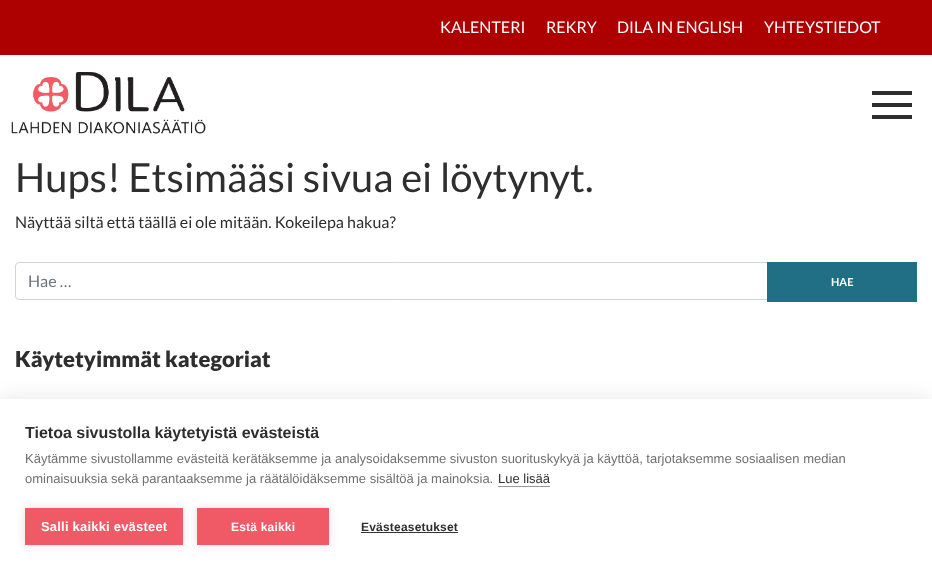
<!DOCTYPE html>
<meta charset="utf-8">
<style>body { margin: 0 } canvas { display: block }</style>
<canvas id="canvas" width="932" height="570"></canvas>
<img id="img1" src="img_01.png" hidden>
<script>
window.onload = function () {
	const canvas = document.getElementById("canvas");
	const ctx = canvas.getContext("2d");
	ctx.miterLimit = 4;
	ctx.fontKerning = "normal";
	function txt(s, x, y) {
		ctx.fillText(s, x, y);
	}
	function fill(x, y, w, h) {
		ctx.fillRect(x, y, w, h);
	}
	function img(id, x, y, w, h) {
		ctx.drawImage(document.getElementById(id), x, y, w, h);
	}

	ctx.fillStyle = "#FFFFFF";
	fill(0, 0, 932, 570);
	ctx.fillStyle = "#AD0000";
	fill(0, 0, 932, 55);
	img("img1", 11, 72, 195, 62);
	ctx.fillStyle = "#2E2E2E";
	fill(872, 91, 40, 4);
	fill(872, 103, 40, 4);
	fill(872, 115, 40, 4);
	ctx.beginPath();
	ctx.roundRect(15.5, 262.5, 752, 37, [3.5, 0, 0, 3.5]);
	ctx.strokeStyle = "#CED4DA";
	ctx.stroke();
	ctx.fillStyle = "#216F84";
	fill(767, 262, 150, 40);
	ctx.fillStyle = "rgba(0, 0, 0, 0.1)";
	ctx.filter = "blur(10px)";
	ctx.beginPath();
	ctx.rect(0, 399, 932, 171);
	ctx.fill();
	ctx.filter = "none";
	ctx.fillStyle = "#FFFFFF";
	fill(0, 399, 932, 171);
	ctx.fillStyle = "#999999";
	fill(498, 486, 52, 1);
	ctx.fillStyle = "rgba(0, 0, 0, 0.12)";
	ctx.filter = "blur(5px)";
	ctx.beginPath();
	ctx.rect(25, 508, 158, 37);
	ctx.fill();
	ctx.filter = "none";
	ctx.fillStyle = "#F05A66";
	fill(25, 508, 158, 37);
	ctx.fillStyle = "rgba(0, 0, 0, 0.12)";
	ctx.filter = "blur(5px)";
	ctx.beginPath();
	ctx.rect(197, 508, 132, 37);
	ctx.fill();
	ctx.filter = "none";
	ctx.fillStyle = "#F05A66";
	fill(197, 508, 132, 37);
	ctx.fillStyle = "#333333";
	fill(361, 532, 97, 1);
	ctx.font = "16px Lato";
	ctx.fillStyle = "#FFFFFF";
	txt("KALENTERI", 440, 33);
	txt("REKRY", 546, 33);
	txt("DILA IN ENGLISH", 617, 33);
	txt("YHTEYSTIEDOT", 764, 33);
	ctx.font = "40px Lato";
	ctx.fillStyle = "#2E2E2E";
	txt("Hups! Etsimääsi sivua ei löytynyt.", 15, 192);
	ctx.font = "16px Lato";
	txt("Näyttää siltä että täällä ei ole mitään. Kokeilepa hakua?", 15, 228);
	ctx.fillStyle = "#6C757D";
	txt("Hae …", 28, 287);
	ctx.font = "bold 11px Lato";
	ctx.fillStyle = "#FFFFFF";
	txt("HAE", 831, 286);
	ctx.font = "900 22px Lato";
	ctx.fillStyle = "#2E2E2E";
	txt("Käytetyimmät kategoriat", 15, 367);
	ctx.font = "bold 16px Liberation Sans";
	txt("Tietoa sivustolla käytetyistä evästeistä", 25, 438);
	ctx.font = "13px Liberation Sans";
	ctx.fillStyle = "#707070";
	txt("Käytämme sivustollamme evästeitä kerätäksemme ja analysoidaksemme sivuston suorituskykyä ja käyttöä, tarjotaksemme sosiaalisen median", 25, 463);
	txt("ominaisuuksia sekä parantaaksemme ja räätälöidäksemme sisältöä ja mainoksia.", 25, 483);
	ctx.fillStyle = "#2E2E2E";
	txt("Lue lisää", 498, 483);
	ctx.letterSpacing = "0.2px";
	ctx.font = "bold 13px Liberation Sans";
	ctx.fillStyle = "#FFFFFF";
	txt("Salli kaikki evästeet", 41, 531);
	ctx.font = "bold 12px Liberation Sans";
	txt("Estä kaikki", 231, 531);
	ctx.fillStyle = "#2E2E2E";
	txt("Evästeasetukset", 361, 531);
};
</script>
